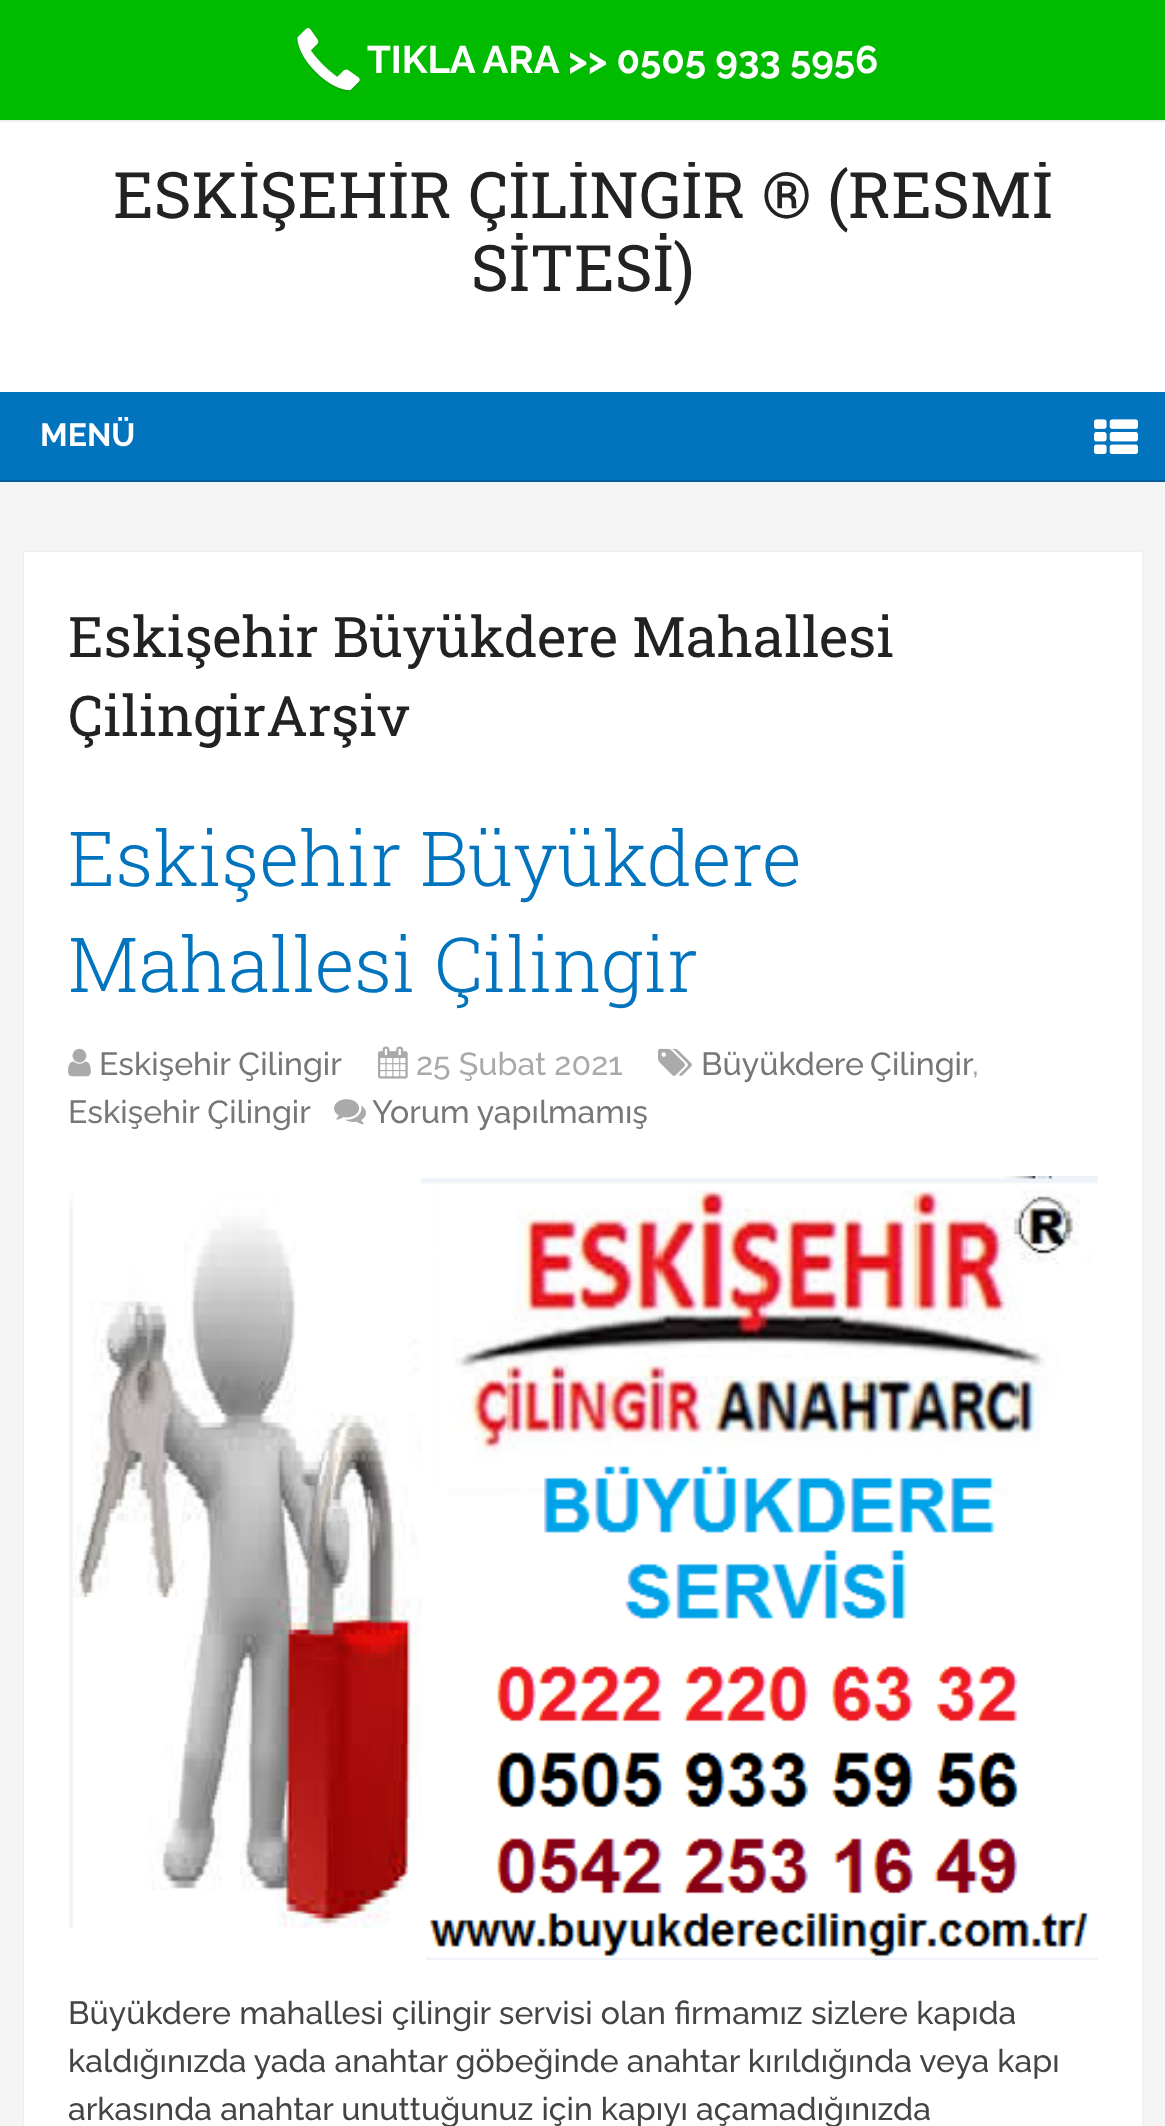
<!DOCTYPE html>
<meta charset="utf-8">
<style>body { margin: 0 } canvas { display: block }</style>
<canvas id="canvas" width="1165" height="2126"></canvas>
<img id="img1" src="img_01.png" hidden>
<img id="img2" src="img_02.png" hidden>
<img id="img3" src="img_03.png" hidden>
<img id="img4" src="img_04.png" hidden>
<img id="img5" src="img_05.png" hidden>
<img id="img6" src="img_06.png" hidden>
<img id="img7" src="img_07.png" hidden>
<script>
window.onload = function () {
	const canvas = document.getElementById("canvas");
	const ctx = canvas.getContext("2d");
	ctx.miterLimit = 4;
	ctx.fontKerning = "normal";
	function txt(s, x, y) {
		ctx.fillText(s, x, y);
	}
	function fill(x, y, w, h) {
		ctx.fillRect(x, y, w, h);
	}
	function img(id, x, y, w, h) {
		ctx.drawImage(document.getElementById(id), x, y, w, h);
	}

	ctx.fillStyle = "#F5F5F5";
	fill(0, 0, 1165, 2126);
	ctx.fillStyle = "#00BB00";
	fill(0, 0, 1165, 120);
	img("img1", 297, 28, 63, 64);
	ctx.fillStyle = "#FFFFFF";
	fill(0, 122, 1165, 270);
	ctx.fillStyle = "#EEEEEE";
	fill(0, 120, 1165, 2);
	ctx.fillStyle = "#0274BE";
	fill(0, 392, 1165, 88);
	ctx.fillStyle = "#025D98";
	fill(0, 480, 1165, 2);
	img("img2", 1094, 419, 44, 35);
	ctx.fillStyle = "rgba(50, 50, 50, 0.1)";
	ctx.filter = "blur(1px)";
	ctx.beginPath();
	ctx.rect(24, 552, 1118, 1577);
	ctx.fill();
	ctx.filter = "none";
	ctx.fillStyle = "#FFFFFF";
	fill(24, 552, 1118, 1574);
	img("img3", 658, 1048, 34, 28);
	img("img4", 68, 1048, 23, 29);
	img("img5", 378, 1046, 30, 33);
	img("img6", 334, 1099, 32, 26);
	img("img7", 68, 1176, 1030, 784);
	ctx.font = "bold 38.4px Raleway";
	txt("TIKLA ARA >> 0505 933 5956", 367, 73);
	ctx.save();
	ctx.beginPath();
	ctx.rect(0, 162, 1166, 170);
	ctx.clip();
	ctx.font = "64px Roboto Slab";
	ctx.fillStyle = "#222222";
	txt("ESKİŞEHİR ÇİLİNGİR ® (RESMİ", 113, 218);
	ctx.restore();
	ctx.font = "64px Roboto Slab";
	ctx.fillStyle = "#222222";
	txt("SİTESİ)", 471, 291);
	ctx.font = "bold 32px Raleway";
	ctx.fillStyle = "#FFFFFF";
	txt("MENÜ", 40, 446);
	ctx.font = "56px Roboto Slab";
	ctx.fillStyle = "#222222";
	txt("Eskişehir Büyükdere Mahallesi", 68, 657);
	txt("ÇilingirArşiv", 68, 736);
	ctx.font = "300 76px Roboto Slab";
	ctx.fillStyle = "#0274BE";
	txt("Eskişehir Büyükdere", 68, 886);
	txt("Mahallesi Çilingir", 68, 992);
	ctx.wordSpacing = "-2px";
	ctx.font = "500 32px Raleway";
	ctx.fillStyle = "#777777";
	txt("Büyükdere Çilingir", 701, 1075);
	ctx.wordSpacing = "0px";
	ctx.fillStyle = "#AAAAAA";
	txt(",", 972, 1075);
	ctx.fillStyle = "#777777";
	txt("Eskişehir Çilingir", 68, 1123);
	txt("Eskişehir Çilingir", 99, 1075);
	ctx.fillStyle = "#AAAAAA";
	txt("25 Şubat 2021", 416, 1075);
	ctx.fillStyle = "#777777";
	txt("Yorum yapılmamış", 372, 1123);
	ctx.wordSpacing = "0.25px";
	ctx.fillStyle = "#444444";
	txt("Büyükdere mahallesi çilingir servisi olan firmamız sizlere kapıda", 68, 2024);
	ctx.wordSpacing = "0px";
	txt("kaldığınızda yada anahtar göbeğinde anahtar kırıldığında veya kapı", 68, 2072);
	txt("arkasında anahtar unuttuğunuz için kapıyı açamadığınızda", 68, 2120);
};
</script>
